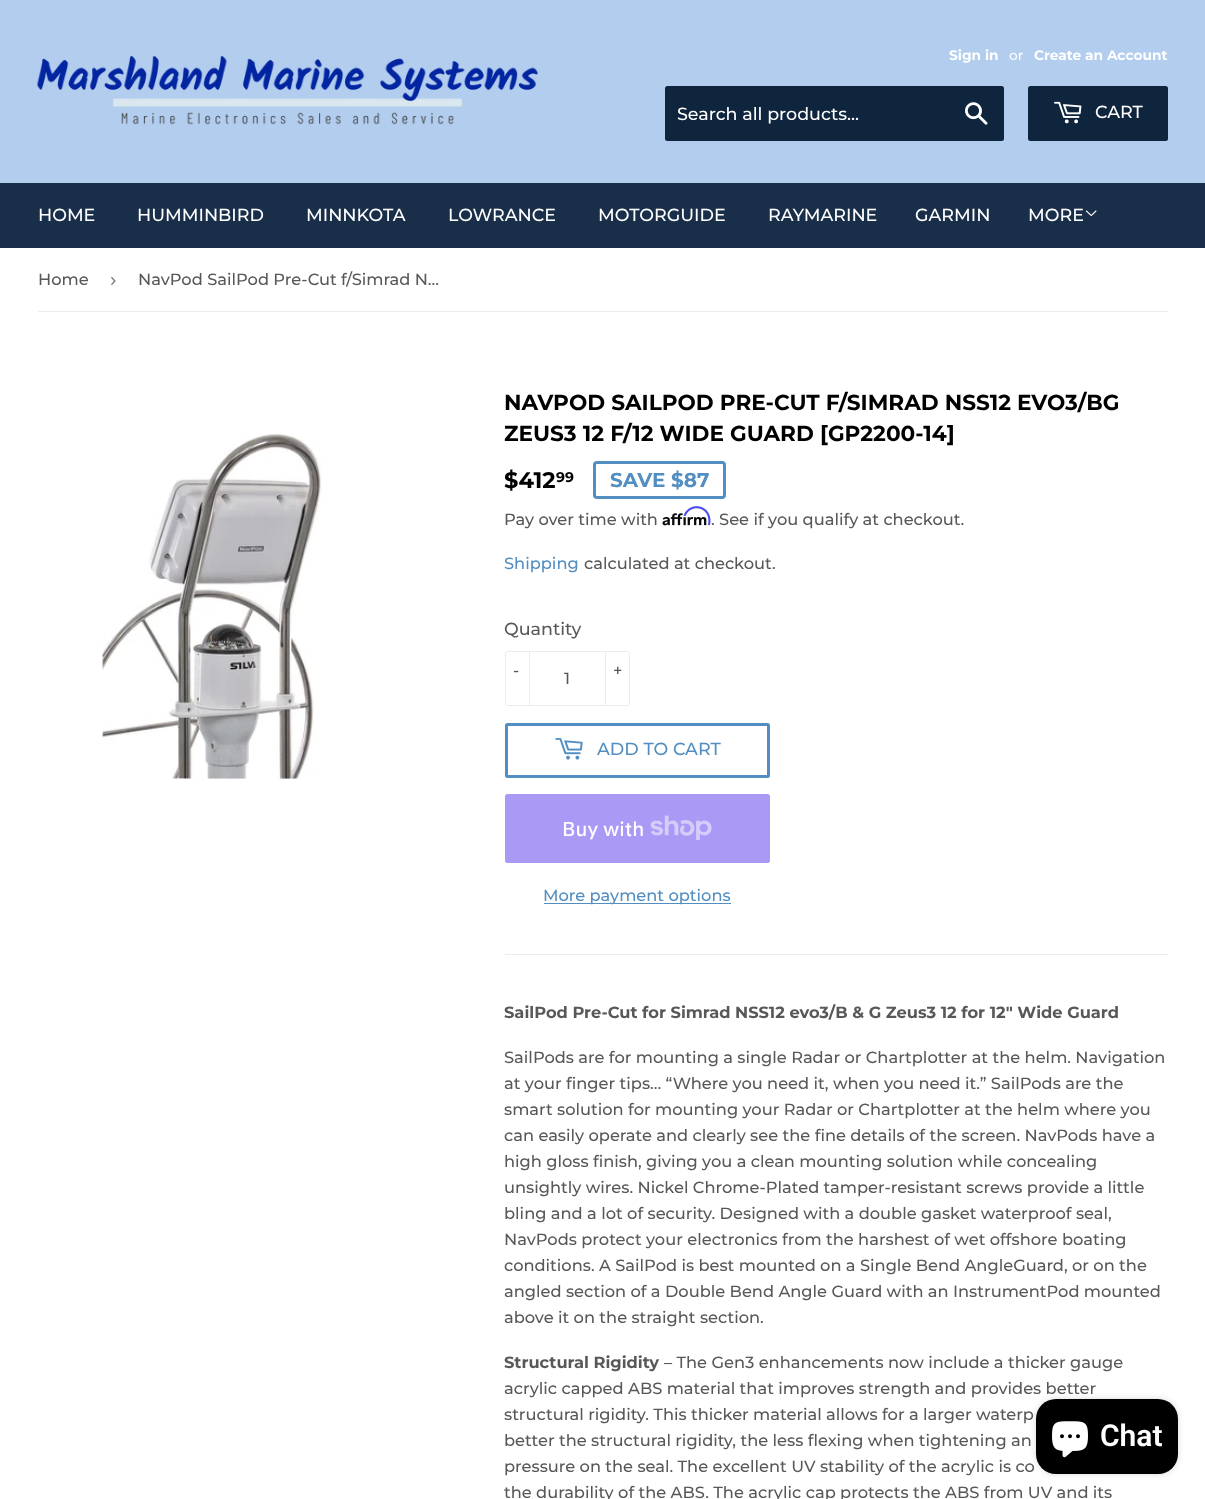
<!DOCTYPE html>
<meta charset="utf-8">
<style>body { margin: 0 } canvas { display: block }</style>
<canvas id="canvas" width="1205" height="1499"></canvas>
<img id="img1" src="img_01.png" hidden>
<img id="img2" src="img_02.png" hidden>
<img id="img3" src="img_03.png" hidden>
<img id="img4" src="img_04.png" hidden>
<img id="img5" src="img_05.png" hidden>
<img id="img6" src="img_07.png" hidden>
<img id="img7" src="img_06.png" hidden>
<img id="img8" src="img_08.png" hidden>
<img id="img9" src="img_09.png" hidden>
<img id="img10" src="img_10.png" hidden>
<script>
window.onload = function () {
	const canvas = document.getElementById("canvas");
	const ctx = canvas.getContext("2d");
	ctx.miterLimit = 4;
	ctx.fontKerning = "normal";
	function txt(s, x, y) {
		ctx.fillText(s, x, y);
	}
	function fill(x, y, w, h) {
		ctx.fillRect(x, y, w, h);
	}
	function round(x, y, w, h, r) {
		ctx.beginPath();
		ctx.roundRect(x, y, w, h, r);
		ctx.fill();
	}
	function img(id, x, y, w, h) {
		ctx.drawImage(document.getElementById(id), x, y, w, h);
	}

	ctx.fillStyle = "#FFFFFF";
	fill(0, 0, 1205, 1499);
	ctx.fillStyle = "#B2CDEE";
	fill(0, 0, 1205, 183);
	img("img1", 37, 56, 501, 69);
	ctx.fillStyle = "#0F243D";
	round(665, 86, 339, 55, 2.5);
	img("img2", 965, 102, 23, 23);
	round(1028, 86, 140, 55, 2.5);
	img("img3", 1054, 101, 28, 23);
	ctx.fillStyle = "#182E49";
	fill(0, 183, 1205, 65);
	img("img4", 1085, 210, 12, 7);
	ctx.fillStyle = "#ECECEC";
	fill(38, 311, 1130, 1);
	img("img5", 102, 434, 221, 345);
	ctx.beginPath();
	ctx.roundRect(594.5, 462.5, 130, 35, 2.5);
	ctx.strokeStyle = "#528EC1";
	ctx.lineWidth = 3;
	ctx.stroke();
	img("img6", 662, 513, 45, 13);
	img("img7", 683, 506, 28, 20);
	ctx.beginPath();
	ctx.roundRect(505.5, 651.5, 124, 54, 2);
	ctx.strokeStyle = "#ECECEC";
	ctx.lineWidth = 1;
	ctx.stroke();
	fill(529, 651, 1, 55);
	fill(605, 651, 1, 55);
	ctx.beginPath();
	ctx.roundRect(506.5, 724.5, 262, 52, 1);
	ctx.strokeStyle = "#528EC1";
	ctx.lineWidth = 3;
	ctx.stroke();
	img("img8", 555, 738, 28, 22);
	ctx.fillStyle = "#AA99F5";
	round(505, 794, 265, 69, 2.5);
	img("img9", 650, 815, 62, 25);
	ctx.fillStyle = "#528EC1";
	fill(544, 903, 187, 1);
	ctx.fillStyle = "#ECECEC";
	fill(505, 954, 663, 1);
	ctx.fillStyle = "rgba(0, 0, 0, 0.15)";
	ctx.filter = "blur(3px)";
	ctx.beginPath();
	ctx.roundRect(1036, 1399, 142, 75, 20);
	ctx.fill();
	ctx.filter = "none";
	ctx.fillStyle = "#000000";
	round(1036, 1399, 142, 75, 20);
	img("img10", 1052, 1421, 36, 37);
	ctx.font = "bold 13.75px Montserrat";
	ctx.fillStyle = "#FFFFFF";
	txt("Sign in", 949, 60);
	ctx.font = "500 13.75px Montserrat";
	txt("or", 1009, 60);
	ctx.font = "bold 13.75px Montserrat";
	txt("Create an Account", 1034, 60);
	ctx.font = "500 17.5px Montserrat";
	txt("Search all products...", 677, 120);
	txt("CART", 1095, 118);
	txt("HOME", 38, 221);
	txt("HUMMINBIRD", 137, 221);
	txt("MINNKOTA", 306, 221);
	txt("LOWRANCE", 448, 221);
	txt("MOTORGUIDE", 598, 221);
	txt("RAYMARINE", 768, 221);
	txt("GARMIN", 915, 221);
	txt("MORE", 1028, 221);
	ctx.font = "500 16.25px Montserrat";
	ctx.fillStyle = "#585858";
	txt("Home", 38, 285);
	ctx.font = "19px Liberation Sans";
	ctx.fillStyle = "#767676";
	txt("›", 110, 286);
	ctx.font = "500 16.25px Montserrat";
	ctx.fillStyle = "#585858";
	txt("NavPod SailPod Pre-Cut f/Simrad N…", 138, 285);
	ctx.font = "bold 21.65px Montserrat";
	ctx.fillStyle = "#000000";
	txt("NAVPOD SAILPOD PRE-CUT F/SIMRAD NSS12 EVO3/BG", 504, 410);
	txt("ZEUS3 12 F/12 WIDE GUARD [GP2200-14]", 504, 441);
	ctx.font = "bold 22.5px Montserrat";
	txt("$412", 504, 488);
	ctx.font = "bold 14px Montserrat";
	txt("99", 556, 482);
	ctx.font = "bold 20px Montserrat";
	ctx.fillStyle = "#528EC1";
	txt("SAVE $87", 610, 487);
	ctx.font = "500 16.25px Montserrat";
	ctx.fillStyle = "#585858";
	txt("Pay over time with", 504, 525);
	txt(". See if you qualify at checkout.", 711, 525);
	ctx.fillStyle = "#528EC1";
	txt("Shipping", 504, 569);
	ctx.fillStyle = "#585858";
	txt("calculated at checkout.", 584, 569);
	ctx.font = "500 17.5px Montserrat";
	txt("Quantity", 504, 635);
	ctx.font = "500 16.25px Montserrat";
	txt("-", 513, 676);
	txt("+", 613, 676);
	txt("1", 564, 684);
	ctx.font = "500 17.5px Montserrat";
	ctx.fillStyle = "#528EC1";
	txt("ADD TO CART", 597, 755);
	ctx.font = "500 20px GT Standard";
	ctx.fillStyle = "#FFFFFF";
	txt("Buy with", 562, 836);
	ctx.font = "500 16.25px Montserrat";
	ctx.fillStyle = "#528EC1";
	txt("More payment options", 543, 901);
	ctx.font = "bold 16.25px Montserrat";
	ctx.fillStyle = "#585858";
	txt("SailPod Pre-Cut for Simrad NSS12 evo3/B & G Zeus3 12 for 12″ Wide Guard", 504, 1018);
	ctx.font = "500 16.25px Montserrat";
	txt("SailPods are for mounting a single Radar or Chartplotter at the helm. Navigation", 504, 1063);
	txt("at your finger tips… “Where you need it, when you need it.” SailPods are the", 504, 1089);
	txt("smart solution for mounting your Radar or Chartplotter at the helm where you", 504, 1115);
	txt("can easily operate and clearly see the fine details of the screen. NavPods have a", 504, 1141);
	txt("high gloss finish, giving you a clean mounting solution while concealing", 504, 1167);
	txt("unsightly wires. Nickel Chrome-Plated tamper-resistant screws provide a little", 504, 1193);
	txt("bling and a lot of security. Designed with a double gasket waterproof seal,", 504, 1219);
	txt("NavPods protect your electronics from the harshest of wet offshore boating", 504, 1245);
	txt("conditions. A SailPod is best mounted on a Single Bend AngleGuard, or on the", 504, 1271);
	txt("angled section of a Double Bend Angle Guard with an InstrumentPod mounted", 504, 1297);
	txt("above it on the straight section.", 504, 1323);
	ctx.font = "bold 16.25px Montserrat";
	txt("Structural Rigidity", 504, 1368);
	ctx.font = "500 16.25px Montserrat";
	txt("– The Gen3 enhancements now include a thicker gauge", 664, 1368);
	txt("acrylic capped ABS material that improves strength and provides better", 504, 1394);
	txt("structural rigidity. This thicker material allows for a larger waterp", 504, 1420);
	txt("better the structural rigidity, the less flexing when tightening an", 504, 1446);
	txt("pressure on the seal. The excellent UV stability of the acrylic is co", 504, 1472);
	txt("the durability of the ABS. The acrylic cap protects the ABS from UV and its", 504, 1498);
	ctx.font = "600 30px Roboto";
	ctx.fillStyle = "#FFFFFF";
	txt("Chat", 1100, 1446);
};
</script>
